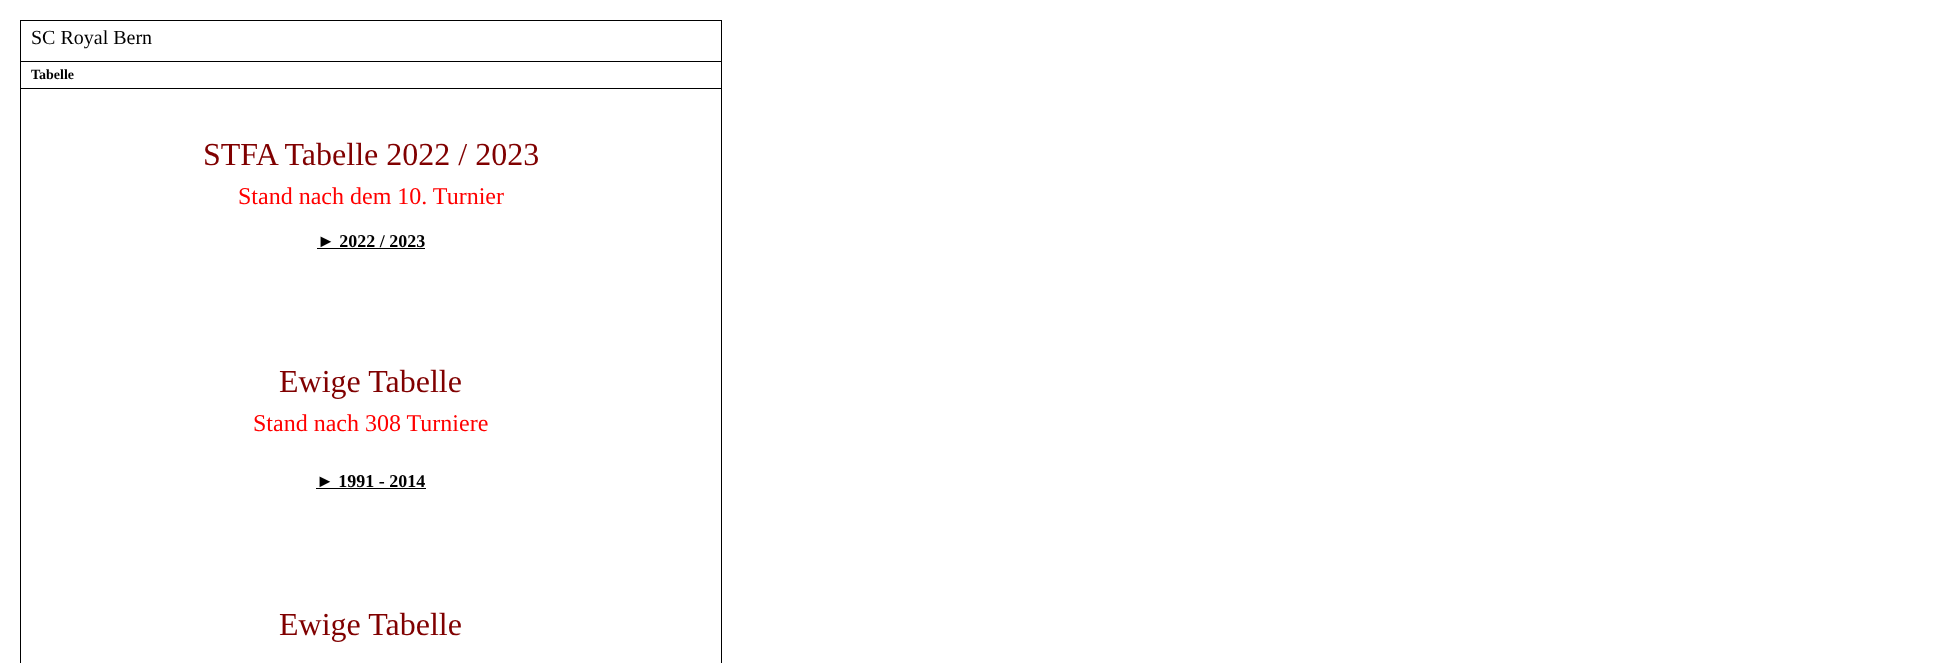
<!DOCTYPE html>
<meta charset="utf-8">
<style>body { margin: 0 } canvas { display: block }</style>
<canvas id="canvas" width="1935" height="663"></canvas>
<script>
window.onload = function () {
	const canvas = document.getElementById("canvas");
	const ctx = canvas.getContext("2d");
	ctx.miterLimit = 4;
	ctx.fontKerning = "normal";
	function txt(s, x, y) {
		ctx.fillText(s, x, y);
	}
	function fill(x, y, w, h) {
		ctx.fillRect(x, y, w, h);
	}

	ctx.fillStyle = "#FFFFFF";
	fill(0, 0, 1935, 663);
	ctx.strokeStyle = "#000000";
	ctx.strokeRect(20.5, 20.5, 701, 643);
	ctx.fillStyle = "#000000";
	fill(21, 61, 700, 1);
	fill(21, 88, 700, 1);
	fill(317, 248, 108, 1);
	fill(316, 488, 110, 1);
	ctx.font = "20px Liberation Serif";
	txt("SC Royal Bern", 31, 44);
	ctx.font = "bold 14px Liberation Serif";
	txt("Tabelle", 31, 79);
	ctx.font = "32px Liberation Serif";
	ctx.fillStyle = "#800000";
	txt("STFA Tabelle 2022 / 2023", 203, 165);
	ctx.font = "24px Liberation Serif";
	ctx.fillStyle = "#FF0000";
	txt("Stand nach dem 10. Turnier", 238, 204);
	ctx.font = "bold 18px Liberation Serif";
	ctx.fillStyle = "#000000";
	txt("► 2022 / 2023", 317, 247);
	ctx.font = "32px Liberation Serif";
	ctx.fillStyle = "#800000";
	txt("Ewige Tabelle", 279, 392);
	ctx.font = "24px Liberation Serif";
	ctx.fillStyle = "#FF0000";
	txt("Stand nach 308 Turniere", 253, 431);
	ctx.font = "bold 18px Liberation Serif";
	ctx.fillStyle = "#000000";
	txt("► 1991 - 2014", 316, 487);
	ctx.font = "32px Liberation Serif";
	ctx.fillStyle = "#800000";
	txt("Ewige Tabelle", 279, 635);
};
</script>
